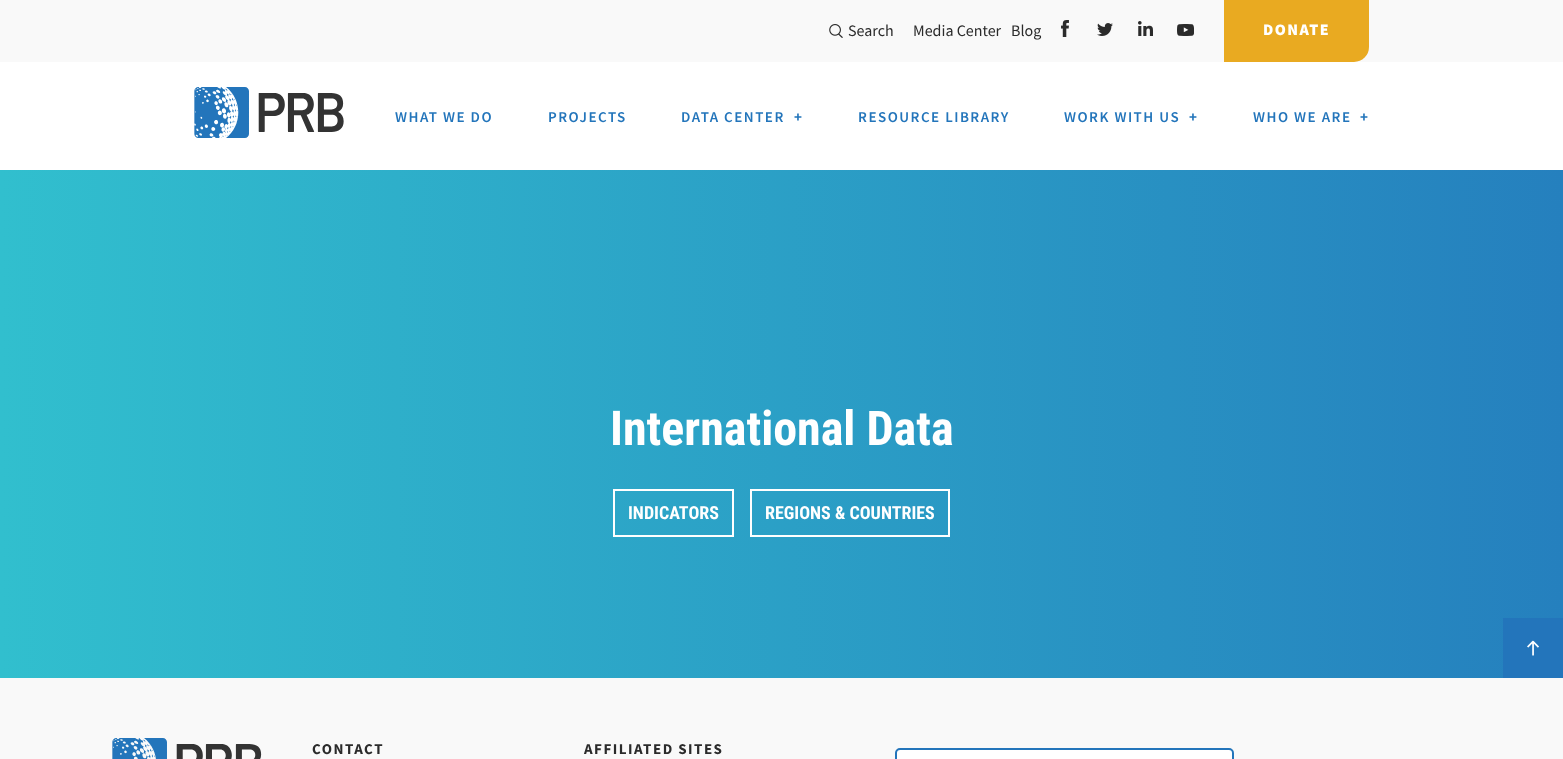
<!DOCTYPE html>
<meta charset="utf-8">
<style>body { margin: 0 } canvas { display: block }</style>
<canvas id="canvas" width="1563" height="759"></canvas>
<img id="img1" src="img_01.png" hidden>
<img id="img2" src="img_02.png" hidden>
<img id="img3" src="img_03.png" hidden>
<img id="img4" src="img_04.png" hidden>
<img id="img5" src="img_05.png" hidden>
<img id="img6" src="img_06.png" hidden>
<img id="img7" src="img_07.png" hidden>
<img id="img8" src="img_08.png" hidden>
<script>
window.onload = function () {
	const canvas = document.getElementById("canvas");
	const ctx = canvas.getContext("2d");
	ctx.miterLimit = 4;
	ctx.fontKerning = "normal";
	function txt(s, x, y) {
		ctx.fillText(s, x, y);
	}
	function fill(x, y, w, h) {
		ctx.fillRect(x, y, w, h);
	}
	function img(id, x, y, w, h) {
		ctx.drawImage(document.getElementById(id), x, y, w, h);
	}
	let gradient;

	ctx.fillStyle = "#FFFFFF";
	fill(0, 0, 1563, 759);
	ctx.fillStyle = "#F9F9F9";
	fill(0, 0, 1563, 62);
	img("img1", 829, 24, 14, 14);
	img("img2", 1061, 20, 8, 17);
	img("img3", 1097, 23, 16, 13);
	img("img4", 1138, 21, 15, 15);
	img("img5", 1177, 24, 17, 12);
	ctx.fillStyle = "#E9AA21";
	ctx.beginPath();
	ctx.roundRect(1224, 0, 145, 62, [0, 0, 15, 0]);
	ctx.fill();
	img("img6", 194, 87, 150, 51);
	gradient = ctx.createLinearGradient(0, 424, 1563, 424);
	gradient.addColorStop(0, "#31BFCE");
	gradient.addColorStop(1, "#2580BE");
	ctx.fillStyle = gradient;
	fill(0, 170, 1563, 508);
	ctx.strokeStyle = "#FFFFFF";
	ctx.lineWidth = 2;
	ctx.strokeRect(614, 490, 119, 46);
	ctx.strokeRect(751, 490, 198, 46);
	ctx.fillStyle = "#2375BB";
	fill(1503, 618, 60, 60);
	img("img7", 1527, 640, 12, 16);
	ctx.fillStyle = "#F9F9F9";
	fill(0, 678, 1563, 81);
	img("img8", 112, 738, 150, 21);
	ctx.fillStyle = "#FFFFFF";
	ctx.beginPath();
	ctx.roundRect(896, 749, 337, 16, 4);
	ctx.fill();
	ctx.strokeStyle = "#2375BB";
	ctx.stroke();
	ctx.font = "16px Source Sans Pro";
	ctx.fillStyle = "#2B2B2B";
	txt("Search", 848, 36);
	txt("Media Center", 913, 36);
	txt("Blog", 1011, 36);
	ctx.letterSpacing = "1.5px";
	ctx.font = "900 16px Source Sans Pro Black";
	ctx.fillStyle = "#FFFFFF";
	txt("DONATE", 1263, 35);
	ctx.font = "600 15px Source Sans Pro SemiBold";
	ctx.fillStyle = "#2375BB";
	txt("WHAT WE DO", 395, 122);
	txt("PROJECTS", 548, 122);
	txt("DATA CENTER", 681, 122);
	ctx.font = "bold 15px Source Sans Pro";
	txt("+", 794, 122);
	ctx.font = "600 15px Source Sans Pro SemiBold";
	txt("RESOURCE LIBRARY", 858, 122);
	txt("WORK WITH US", 1064, 122);
	ctx.font = "bold 15px Source Sans Pro";
	txt("+", 1189, 122);
	ctx.font = "600 15px Source Sans Pro SemiBold";
	txt("WHO WE ARE", 1253, 122);
	ctx.font = "bold 15px Source Sans Pro";
	txt("+", 1360, 122);
	ctx.letterSpacing = "0px";
	ctx.font = "bold 48px Roboto Condensed";
	ctx.fillStyle = "#FFFFFF";
	txt("International Data", 610, 445);
	ctx.font = "bold 18px Roboto Condensed";
	txt("INDICATORS", 628, 519);
	txt("REGIONS & COUNTRIES", 765, 519);
	ctx.letterSpacing = "1.5px";
	ctx.font = "bold 15px Source Sans Pro";
	ctx.fillStyle = "#2B2B2B";
	txt("CONTACT", 312, 754);
	txt("AFFILIATED SITES", 584, 754);
};
</script>
